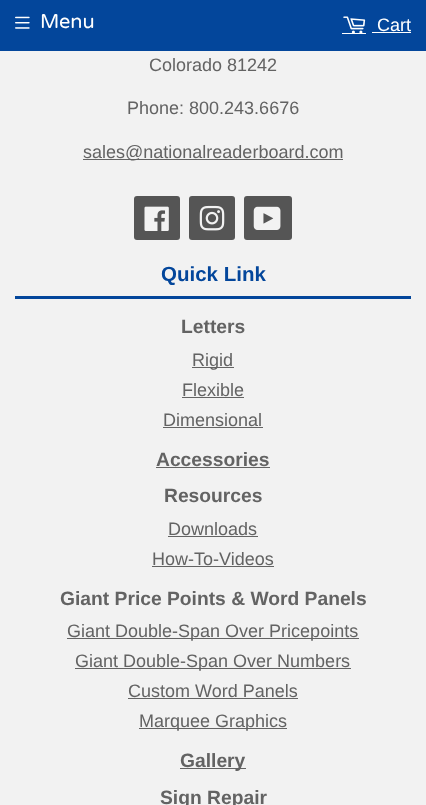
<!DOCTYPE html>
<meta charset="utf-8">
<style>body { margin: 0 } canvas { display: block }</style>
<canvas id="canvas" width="426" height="805"></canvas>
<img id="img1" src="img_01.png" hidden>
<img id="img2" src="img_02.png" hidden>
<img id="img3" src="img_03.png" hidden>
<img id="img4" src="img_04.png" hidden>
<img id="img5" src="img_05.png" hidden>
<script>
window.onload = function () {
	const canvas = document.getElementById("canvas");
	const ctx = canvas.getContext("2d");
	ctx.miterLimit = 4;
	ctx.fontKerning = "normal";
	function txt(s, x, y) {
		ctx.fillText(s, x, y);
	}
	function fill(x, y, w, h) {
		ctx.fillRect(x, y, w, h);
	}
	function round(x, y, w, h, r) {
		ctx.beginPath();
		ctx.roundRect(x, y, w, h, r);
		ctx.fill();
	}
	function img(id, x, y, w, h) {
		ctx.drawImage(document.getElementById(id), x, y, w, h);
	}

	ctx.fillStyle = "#F2F2F2";
	fill(0, 0, 426, 805);
	ctx.fillStyle = "#03469B";
	fill(0, 0, 426, 51);
	img("img1", 15, 16, 15, 13);
	img("img2", 343, 16, 23, 17);
	ctx.fillStyle = "#FFFFFF";
	fill(372, 32, 39, 1);
	fill(342, 33, 24, 1);
	ctx.fillStyle = "#636363";
	fill(83, 159, 260, 1);
	ctx.fillStyle = "#555555";
	round(134, 196, 46, 44, 3);
	img("img3", 144, 206, 25, 25);
	round(189, 196, 46, 44, 3);
	img("img4", 199, 205, 26, 26);
	round(244, 196, 48, 44, 3);
	img("img5", 253, 206, 28, 24);
	ctx.fillStyle = "#03469B";
	fill(15, 296, 396, 3);
	ctx.fillStyle = "#636363";
	fill(192, 367, 42, 1);
	fill(182, 397, 62, 1);
	fill(163, 427, 100, 1);
	fill(156, 467, 114, 1);
	fill(168, 536, 90, 1);
	fill(152, 566, 122, 1);
	fill(67, 638, 292, 1);
	fill(75, 668, 276, 1);
	fill(128, 698, 170, 1);
	fill(139, 728, 148, 1);
	fill(180, 768, 66, 1);
	ctx.font = "20px Varela Round";
	ctx.fillStyle = "#FFFFFF";
	txt("Menu", 40, 28);
	ctx.font = "18px Liberation Sans";
	txt("Cart", 377, 31);
	ctx.fillStyle = "#636363";
	txt("Colorado 81242", 149, 71);
	txt("Phone: 800.243.6676", 127, 114);
	txt("sales@nationalreaderboard.com", 83, 158);
	ctx.font = "bold 20.5px Liberation Sans";
	ctx.fillStyle = "#03469B";
	txt("Quick Link", 161, 281);
	ctx.font = "bold 19.25px Liberation Sans";
	ctx.fillStyle = "#636363";
	txt("Letters", 181, 333);
	ctx.font = "18px Liberation Sans";
	txt("Rigid", 192, 366);
	txt("Flexible", 182, 396);
	txt("Dimensional", 163, 426);
	ctx.font = "bold 19.25px Liberation Sans";
	txt("Accessories", 156, 466);
	txt("Resources", 164, 502);
	ctx.font = "18px Liberation Sans";
	txt("Downloads", 168, 535);
	txt("How-To-Videos", 152, 565);
	ctx.font = "bold 19.25px Liberation Sans";
	txt("Giant Price Points & Word Panels", 60, 605);
	ctx.font = "18px Liberation Sans";
	txt("Giant Double-Span Over Pricepoints", 67, 637);
	txt("Giant Double-Span Over Numbers", 75, 667);
	txt("Custom Word Panels", 128, 697);
	txt("Marquee Graphics", 139, 727);
	ctx.font = "bold 19.25px Liberation Sans";
	txt("Gallery", 180, 767);
	txt("Sign Repair", 160, 804);
};
</script>
